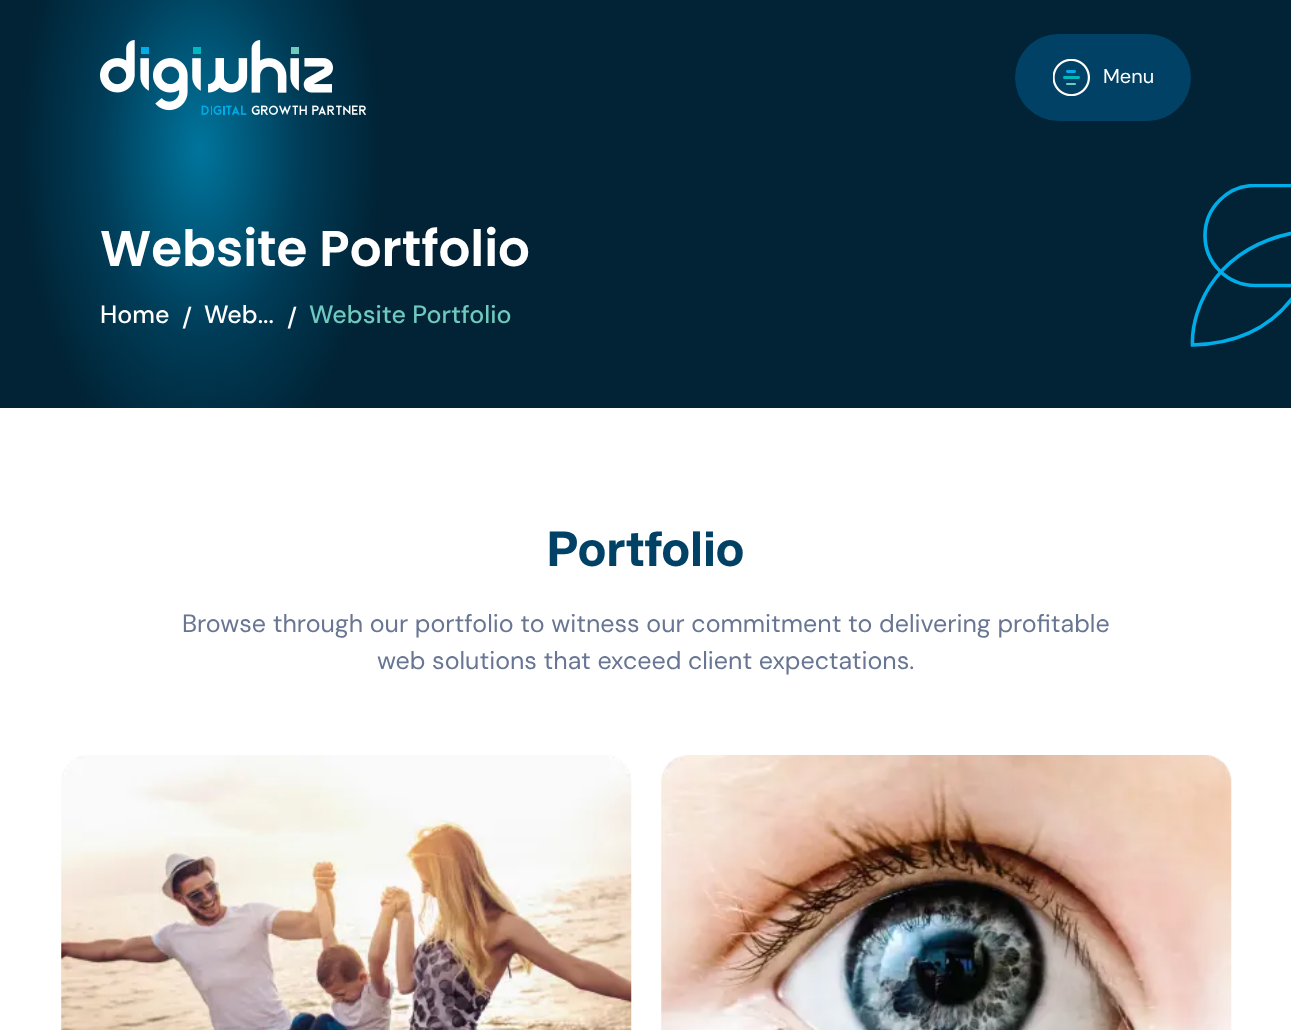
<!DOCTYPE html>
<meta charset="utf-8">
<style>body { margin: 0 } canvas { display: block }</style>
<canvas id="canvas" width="1291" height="1030"></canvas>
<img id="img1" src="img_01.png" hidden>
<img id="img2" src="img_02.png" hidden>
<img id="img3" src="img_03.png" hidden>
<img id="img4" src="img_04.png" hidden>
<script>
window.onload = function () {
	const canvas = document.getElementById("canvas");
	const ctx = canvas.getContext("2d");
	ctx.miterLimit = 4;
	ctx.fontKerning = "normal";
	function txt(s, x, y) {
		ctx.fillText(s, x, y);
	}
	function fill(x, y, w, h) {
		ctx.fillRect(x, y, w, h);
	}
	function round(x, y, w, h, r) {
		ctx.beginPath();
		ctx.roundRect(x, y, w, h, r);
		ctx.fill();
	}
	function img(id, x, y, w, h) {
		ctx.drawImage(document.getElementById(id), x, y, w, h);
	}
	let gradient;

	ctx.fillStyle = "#FFFFFF";
	fill(0, 0, 1291, 1030);
	gradient = ctx.createRadialGradient(200, 81.7, 0, 200, 81.7, 227);
	gradient.addColorStop(0, "#00759D");
	gradient.addColorStop(0.45, "#003C57");
	gradient.addColorStop(0.8, "#012335");
	ctx.fillStyle = gradient;
	ctx.beginPath();
	ctx.rect(0, 0, 1291, 408);
	ctx.save();
	ctx.clip();
	ctx.scale(1, 414 / 227);
	ctx.fillRect(0, 0, 1291, 565);
	ctx.restore();
	img("img1", 100, 40, 266, 75);
	ctx.fillStyle = "#004165";
	round(1015, 34, 176, 87, 43.5);
	img("img2", 1053, 59, 37, 37);
	ctx.beginPath();
	ctx.moveTo(1192.5, 345);
	ctx.bezierCurveTo(1191, 310, 1215.5, 238.5, 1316.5, 229.5);
	ctx.bezierCurveTo(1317.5, 263, 1291, 342.5, 1192.5, 345);
	ctx.closePath();
	ctx.strokeStyle = "#00ADE8";
	ctx.lineWidth = 3.6;
	ctx.stroke();
	ctx.save();
	ctx.beginPath();
	ctx.rect(1190, 184, 101, 164);
	ctx.clip();
	ctx.beginPath();
	ctx.moveTo(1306, 187.5);
	ctx.lineTo(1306, 185.5);
	ctx.lineTo(1255, 185.5);
	ctx.bezierCurveTo(1227.5, 185.5, 1205, 208, 1205, 235.5);
	ctx.bezierCurveTo(1205, 263, 1227.5, 285.5, 1255, 285.5);
	ctx.lineTo(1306, 285.5);
	ctx.closePath();
	ctx.stroke();
	ctx.restore();
	img("img3", 61, 755, 571, 275);
	img("img4", 661, 755, 571, 275);
	ctx.font = "20px DM Sans";
	ctx.fillStyle = "#FFFFFF";
	txt("Menu", 1103, 83);
	ctx.font = "600 50px Poppins";
	txt("Website Portfolio", 100, 266);
	ctx.font = "500 25px DM Sans";
	txt("Home", 100, 323);
	txt("/", 182, 326);
	txt("Web...", 204, 323);
	txt("/", 287, 326);
	ctx.fillStyle = "#70C9BF";
	txt("Website Portfolio", 309, 323);
	ctx.font = "bold 47.5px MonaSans";
	ctx.fillStyle = "#004165";
	txt("Portfolio", 546, 566);
	ctx.font = "25px DM Sans";
	ctx.fillStyle = "#687693";
	txt("Browse through our portfolio to witness our commitment to delivering profitable", 182, 632);
	txt("web solutions that exceed client expectations.", 377, 669);
};
</script>
